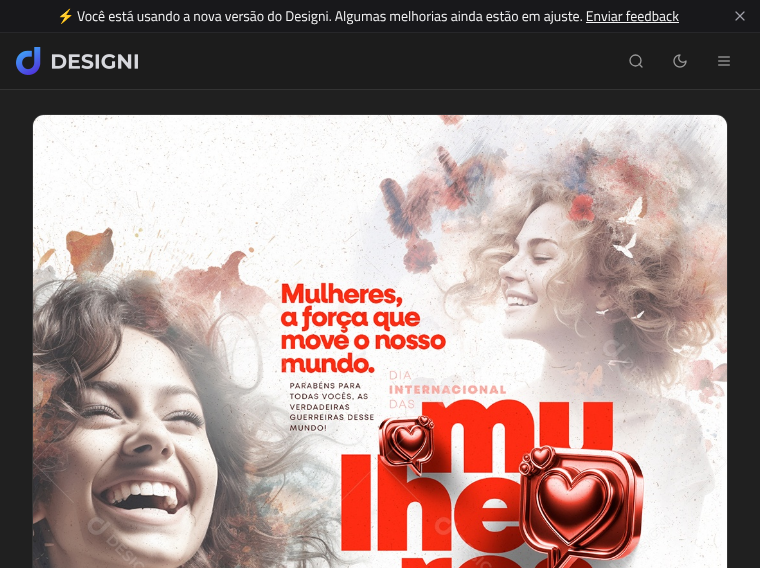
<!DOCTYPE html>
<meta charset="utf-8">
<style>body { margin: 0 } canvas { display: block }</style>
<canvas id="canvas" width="760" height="568"></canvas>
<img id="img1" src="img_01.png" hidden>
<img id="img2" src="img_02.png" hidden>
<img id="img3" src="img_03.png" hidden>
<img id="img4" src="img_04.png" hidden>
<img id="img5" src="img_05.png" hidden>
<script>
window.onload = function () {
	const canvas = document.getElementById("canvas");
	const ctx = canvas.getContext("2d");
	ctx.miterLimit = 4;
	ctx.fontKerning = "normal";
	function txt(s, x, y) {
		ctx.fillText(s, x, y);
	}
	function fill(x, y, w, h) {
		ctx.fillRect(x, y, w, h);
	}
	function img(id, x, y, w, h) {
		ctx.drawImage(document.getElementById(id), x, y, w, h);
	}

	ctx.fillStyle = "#202020";
	fill(0, 0, 760, 568);
	ctx.fillStyle = "#1C1C1C";
	fill(0, 33, 760, 56);
	ctx.fillStyle = "#333333";
	fill(0, 89, 760, 1);
	ctx.fillStyle = "#18181B";
	fill(0, 0, 760, 32);
	ctx.fillStyle = "#27272A";
	fill(0, 32, 760, 1);
	ctx.fillStyle = "#F4F4F5";
	fill(586, 22, 93, 1);
	img("img1", 735, 11, 10, 10);
	img("img2", 16, 47, 122, 28);
	ctx.beginPath();
	ctx.arc(635.5, 60.5, 5.5, 0, Math.PI * 2);
	ctx.strokeStyle = "#999999";
	ctx.lineWidth = 1.3;
	ctx.stroke();
	ctx.beginPath();
	ctx.moveTo(642, 67);
	ctx.lineTo(639, 64);
	ctx.lineCap = "round";
	ctx.lineJoin = "round";
	ctx.stroke();
	img("img3", 673, 54, 14, 14);
	img("img4", 718, 56, 12, 10);
	ctx.beginPath();
	ctx.roundRect(32.5, 114.5, 695, 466, 11.5);
	ctx.strokeStyle = "#333333";
	ctx.lineWidth = 1;
	ctx.lineJoin = "miter";
	ctx.stroke();
	img("img5", 33, 115, 694, 453);
	ctx.font = "14px Noto Color Emoji";
	txt("⚡", 57, 21);
	ctx.font = "14px Titillium Web";
	txt("Você está usando a nova versão do Designi. Algumas melhorias ainda estão em ajuste. Enviar feedback", 77, 21);
};
</script>
